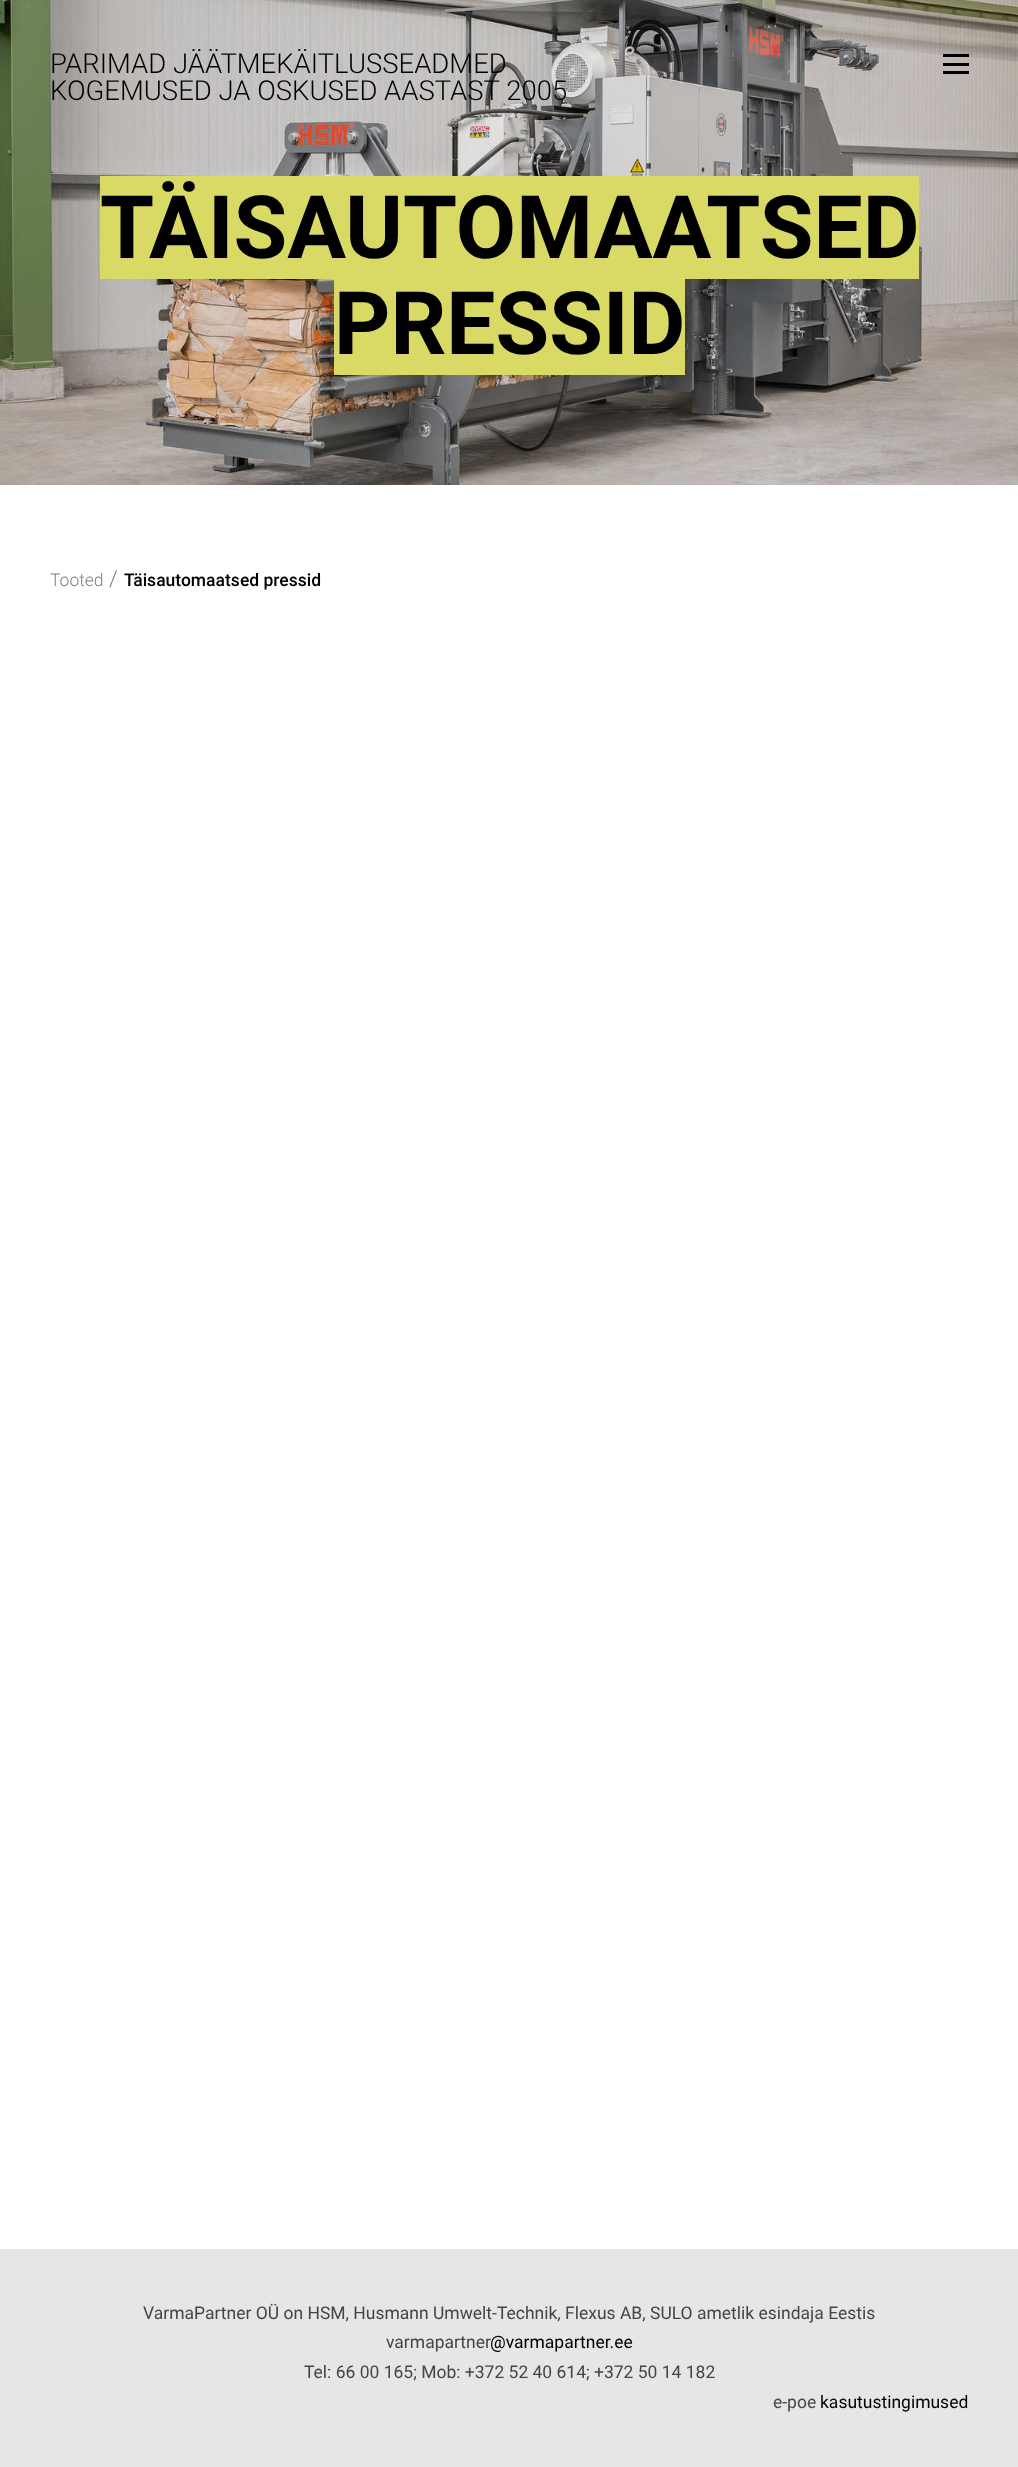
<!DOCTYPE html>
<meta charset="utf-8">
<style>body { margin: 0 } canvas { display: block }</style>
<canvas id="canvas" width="1018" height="2467"></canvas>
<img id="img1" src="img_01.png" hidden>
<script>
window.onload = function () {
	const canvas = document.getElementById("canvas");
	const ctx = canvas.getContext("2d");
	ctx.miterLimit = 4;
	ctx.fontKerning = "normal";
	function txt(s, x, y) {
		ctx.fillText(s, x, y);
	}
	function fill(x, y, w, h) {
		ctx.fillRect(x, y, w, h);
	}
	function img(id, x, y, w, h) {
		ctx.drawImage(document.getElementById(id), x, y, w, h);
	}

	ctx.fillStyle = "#FFFFFF";
	fill(0, 0, 1018, 2467);
	img("img1", 0, 0, 1018, 485);
	ctx.fillStyle = "#000000";
	fill(943, 54, 26, 3);
	fill(943, 63, 26, 3);
	fill(943, 71, 26, 3);
	ctx.fillStyle = "#D9D966";
	fill(100, 176, 819, 103);
	fill(334, 279, 351, 96);
	ctx.fillStyle = "#E6E6E6";
	fill(0, 2249, 1018, 218);
	ctx.font = "300 27.5px Roboto";
	ctx.fillStyle = "#000000";
	txt("PARIMAD JÄÄTMEKÄITLUSSEADMED", 50, 73);
	txt("KOGEMUSED JA OSKUSED AASTAST 2005", 50, 100);
	ctx.font = "bold 87.5px Roboto";
	txt("TÄISAUTOMAATSED", 100, 258);
	txt("PRESSID", 334, 354);
	ctx.font = "300 17.5px Roboto";
	ctx.fillStyle = "#808080";
	txt("Tooted", 50, 586);
	ctx.font = "300 22px Roboto";
	txt("/", 109, 586);
	ctx.font = "500 17.5px Roboto";
	ctx.fillStyle = "#000000";
	txt("Täisautomaatsed pressid", 124, 586);
	ctx.font = "17.5px Roboto";
	ctx.fillStyle = "#454545";
	txt("VarmaPartner OÜ on HSM, Husmann Umwelt-Technik, Flexus AB, SULO ametlik esindaja Eestis", 143, 2319);
	txt("varmapartner", 386, 2348);
	ctx.fillStyle = "#000000";
	txt("@varmapartner.ee", 490, 2348);
	ctx.fillStyle = "#454545";
	txt("Tel: 66 00 165; Mob: +372 52 40 614; +372 50 14 182", 304, 2378);
	txt("e-poe", 773, 2408);
	ctx.fillStyle = "#000000";
	txt("kasutustingimused", 820, 2408);
};
</script>
